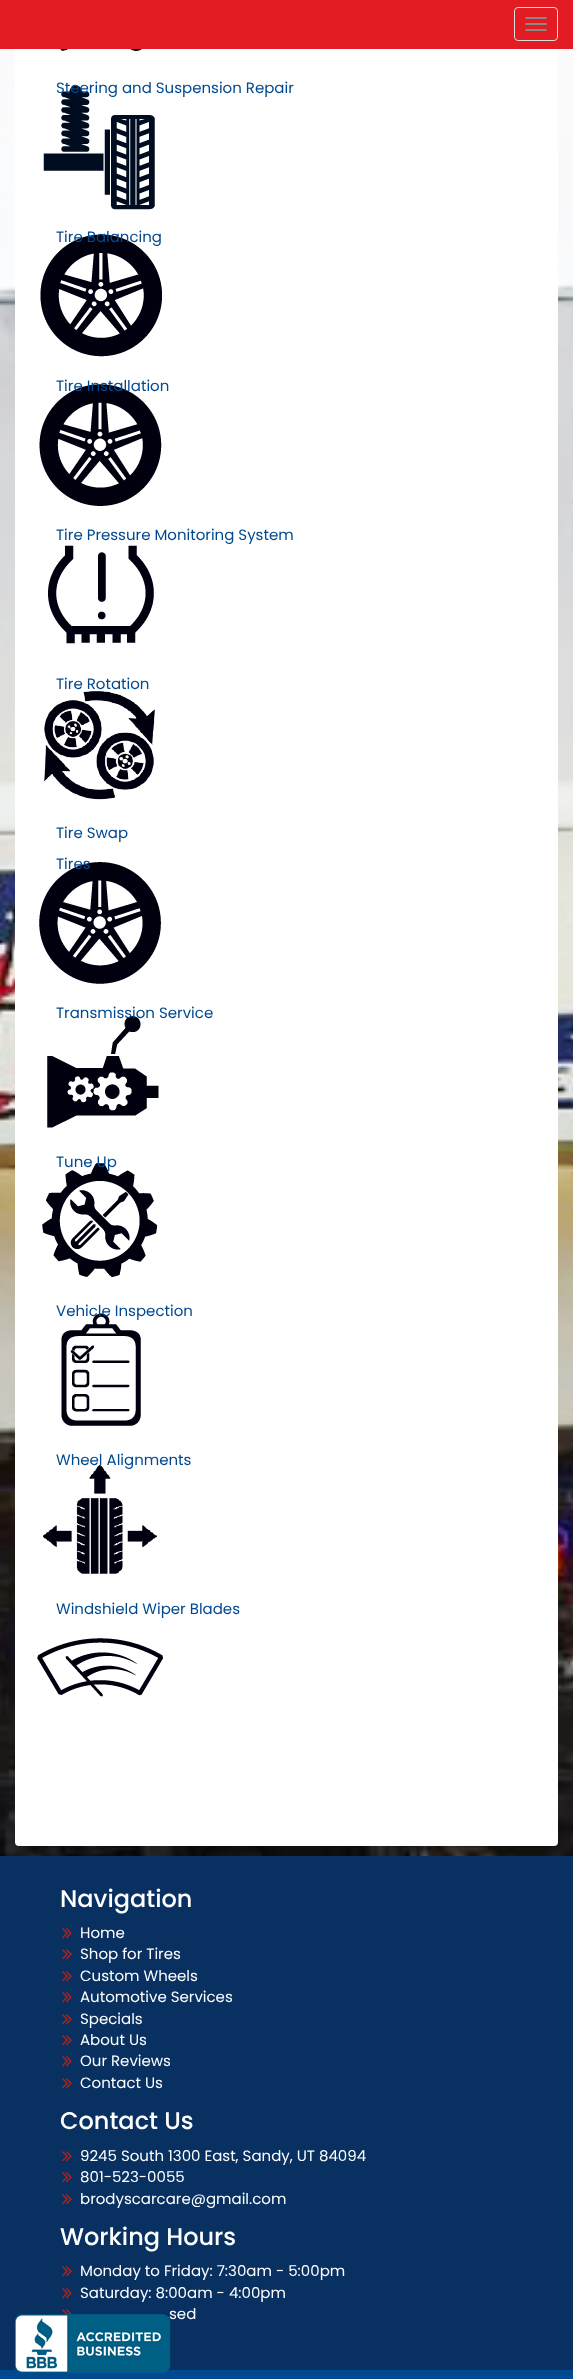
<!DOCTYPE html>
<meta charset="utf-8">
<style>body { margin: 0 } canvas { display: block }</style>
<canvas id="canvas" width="573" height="2379"></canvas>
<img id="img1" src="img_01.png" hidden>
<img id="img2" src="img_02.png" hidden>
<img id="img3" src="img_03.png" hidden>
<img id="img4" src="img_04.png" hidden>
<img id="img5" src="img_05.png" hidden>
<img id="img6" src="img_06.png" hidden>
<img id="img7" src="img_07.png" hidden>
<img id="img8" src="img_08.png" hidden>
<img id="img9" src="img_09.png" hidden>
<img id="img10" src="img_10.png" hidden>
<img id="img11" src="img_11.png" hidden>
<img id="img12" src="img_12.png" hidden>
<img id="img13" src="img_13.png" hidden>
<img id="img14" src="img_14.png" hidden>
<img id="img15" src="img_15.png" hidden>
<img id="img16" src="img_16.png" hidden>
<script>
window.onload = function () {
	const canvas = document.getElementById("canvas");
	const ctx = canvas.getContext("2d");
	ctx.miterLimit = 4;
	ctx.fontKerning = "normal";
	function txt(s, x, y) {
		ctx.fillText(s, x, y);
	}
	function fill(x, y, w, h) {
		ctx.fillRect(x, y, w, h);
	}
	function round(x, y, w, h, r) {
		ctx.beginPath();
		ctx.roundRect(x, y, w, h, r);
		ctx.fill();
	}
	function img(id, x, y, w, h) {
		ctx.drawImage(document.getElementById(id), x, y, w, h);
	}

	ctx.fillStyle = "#FFFFFF";
	fill(0, 0, 573, 2379);
	img("img1", 0, 49, 573, 1807);
	ctx.fillStyle = "rgba(0, 0, 0, 0.05)";
	ctx.filter = "blur(0.5px)";
	ctx.beginPath();
	ctx.roundRect(15, -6, 543, 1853, 4);
	ctx.fill();
	ctx.filter = "none";
	ctx.fillStyle = "#FFFFFF";
	round(15, -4, 543, 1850, 4);
	ctx.fillStyle = "#E31B23";
	fill(0, 0, 573, 49);
	ctx.beginPath();
	ctx.roundRect(514.5, 7.5, 43, 33, 3.5);
	ctx.strokeStyle = "#DDDDDD";
	ctx.stroke();
	ctx.fillStyle = "#888888";
	round(525, 17, 22, 2, 1);
	round(525, 23, 22, 2, 1);
	round(525, 29, 22, 2, 1);
	img("img2", 60, 49, 82, 2);
	img("img3", 43, 85, 112, 125);
	img("img4", 40, 234, 122, 123);
	img("img5", 39, 384, 123, 122);
	img("img6", 48, 545, 106, 99);
	img("img7", 44, 691, 111, 109);
	img("img8", 39, 862, 122, 122);
	img("img9", 47, 1016, 112, 112);
	img("img10", 42, 1163, 116, 114);
	img("img11", 61, 1313, 80, 113);
	img("img12", 43, 1465, 114, 109);
	img("img13", 37, 1638, 126, 59);
	ctx.fillStyle = "#004990";
	fill(0, 2370, 573, 9);
	ctx.fillStyle = "#083061";
	fill(0, 1856, 573, 514);
	img("img14", 62, 1928, 10, 11);
	img("img14", 62, 1949, 10, 11);
	img("img14", 62, 1971, 10, 11);
	img("img14", 62, 1992, 10, 11);
	img("img14", 62, 2014, 10, 11);
	img("img14", 62, 2035, 10, 11);
	img("img14", 62, 2056, 10, 11);
	img("img14", 62, 2078, 10, 11);
	img("img14", 62, 2151, 10, 11);
	img("img14", 62, 2172, 10, 11);
	img("img14", 62, 2194, 10, 11);
	img("img14", 62, 2266, 10, 11);
	img("img14", 62, 2288, 10, 11);
	img("img15", 62, 2309, 10, 6);
	ctx.font = "15px Poppins";
	ctx.fillStyle = "#004990";
	txt("Steering and Suspension Repair", 56, 93);
	txt("Tire Balancing", 56, 242);
	txt("Tire Installation", 56, 391);
	txt("Tire Pressure Monitoring System", 56, 540);
	txt("Tire Rotation", 56, 689);
	txt("Tire Swap", 56, 838);
	txt("Tires", 56, 869);
	txt("Transmission Service", 56, 1018);
	txt("Tune Up", 56, 1167);
	txt("Vehicle Inspection", 56, 1316);
	txt("Wheel Alignments", 56, 1465);
	txt("Windshield Wiper Blades", 56, 1614);
	ctx.font = "500 24px Poppins";
	ctx.fillStyle = "#FFFFFF";
	txt("Navigation", 60, 1907);
	ctx.font = "15px Poppins";
	txt("Home", 80, 1938);
	txt("Shop for Tires", 80, 1959);
	txt("Custom Wheels", 80, 1981);
	txt("Automotive Services", 80, 2002);
	txt("Specials", 80, 2024);
	txt("About Us", 80, 2045);
	txt("Our Reviews", 80, 2066);
	txt("Contact Us", 80, 2088);
	ctx.font = "500 24px Poppins";
	txt("Contact Us", 60, 2129);
	ctx.font = "15px Poppins";
	txt("9245 South 1300 East, Sandy, UT 84094", 80, 2161);
	txt("801-523-0055", 80, 2182);
	txt("brodyscarcare@gmail.com", 80, 2204);
	ctx.font = "500 24px Poppins";
	txt("Working Hours", 60, 2245);
	ctx.font = "15px Poppins";
	txt("Monday to Friday: 7:30am - 5:00pm", 80, 2276);
	txt("Saturday: 8:00am - 4:00pm", 80, 2298);
	txt("sed", 169, 2319);
	img("img16", 15, 2314, 159, 59);
};
</script>
